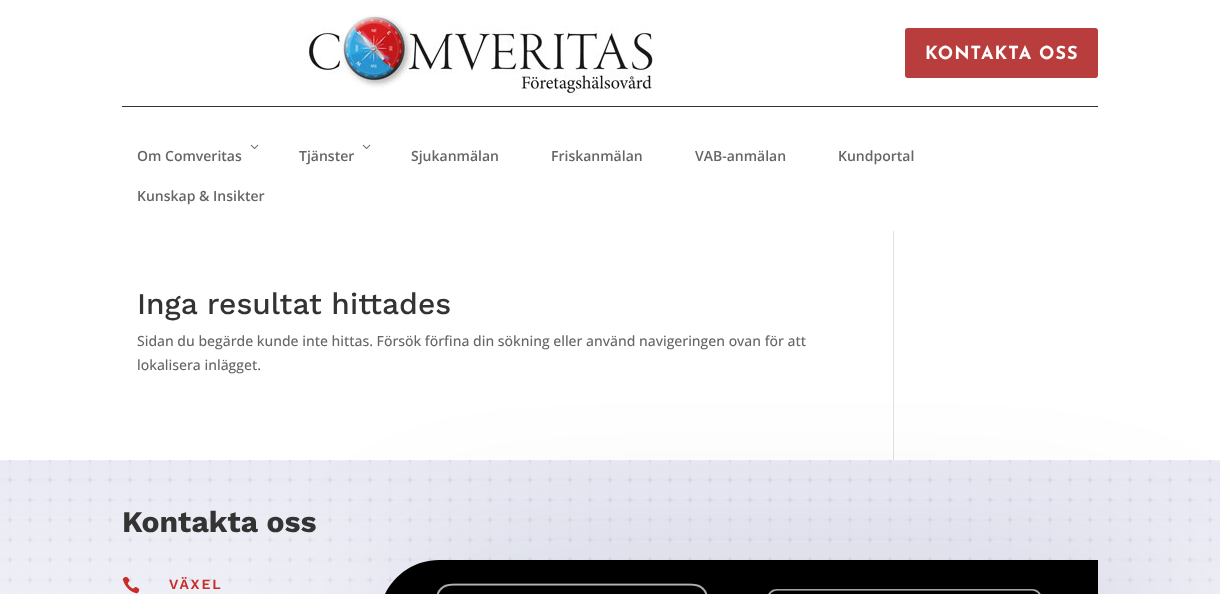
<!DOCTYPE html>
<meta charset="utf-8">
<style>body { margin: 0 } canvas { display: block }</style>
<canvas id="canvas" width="1220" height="594"></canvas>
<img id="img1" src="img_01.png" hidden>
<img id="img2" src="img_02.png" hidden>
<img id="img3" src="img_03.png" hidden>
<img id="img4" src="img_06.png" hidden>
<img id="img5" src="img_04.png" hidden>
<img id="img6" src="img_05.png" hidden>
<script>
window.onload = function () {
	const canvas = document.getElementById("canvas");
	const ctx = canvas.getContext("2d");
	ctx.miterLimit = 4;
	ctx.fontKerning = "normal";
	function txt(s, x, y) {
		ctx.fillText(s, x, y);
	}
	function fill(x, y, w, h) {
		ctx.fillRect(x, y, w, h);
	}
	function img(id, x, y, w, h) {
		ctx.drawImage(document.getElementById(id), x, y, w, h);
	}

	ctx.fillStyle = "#FFFFFF";
	fill(0, 0, 1220, 594);
	ctx.fillStyle = "#333333";
	fill(122, 106, 976, 1);
	img("img1", 306, 15, 350, 81);
	ctx.fillStyle = "#BA3D3D";
	ctx.beginPath();
	ctx.roundRect(906, 29, 191, 48, 2);
	ctx.fill();
	ctx.strokeStyle = "#BA3D3D";
	ctx.lineWidth = 2;
	ctx.stroke();
	img("img2", 250, 144, 9, 5);
	img("img2", 362, 144, 9, 5);
	ctx.fillStyle = "#E2E2E2";
	fill(893, 231, 1, 229);
	img("img3", 0, 460, 1220, 134);
	img("img4", 122, 576, 18, 18);
	ctx.fillStyle = "rgba(6, 10, 76, 0.19)";
	ctx.filter = "blur(95px)";
	ctx.beginPath();
	ctx.roundRect(419, 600, 719, 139, 60);
	ctx.fill();
	ctx.filter = "none";
	ctx.fillStyle = "#000000";
	ctx.beginPath();
	ctx.moveTo(439, 560);
	ctx.lineTo(1098, 560);
	ctx.lineTo(1098, 594);
	ctx.bezierCurveTo(1098, 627, 1071, 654, 1038, 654);
	ctx.lineTo(379, 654);
	ctx.lineTo(379, 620);
	ctx.bezierCurveTo(379, 587, 406, 560, 439, 560);
	ctx.closePath();
	ctx.fill();
	img("img5", 436, 583, 272, 11);
	img("img6", 768, 589, 273, 5);
	ctx.letterSpacing = "1px";
	ctx.font = "bold 18px Josefin Sans";
	ctx.fillStyle = "#FFFFFF";
	txt("KONTAKTA OSS", 925, 59);
	ctx.letterSpacing = "0px";
	ctx.font = "600 14px Open Sans";
	ctx.fillStyle = "#666666";
	txt("Om Comveritas", 137, 161);
	txt("Tjänster", 299, 161);
	txt("Sjukanmälan", 411, 161);
	txt("Friskanmälan", 551, 161);
	txt("VAB-anmälan", 695, 161);
	txt("Kundportal", 838, 161);
	txt("Kunskap & Insikter", 137, 201);
	ctx.font = "500 30px Work Sans";
	ctx.fillStyle = "#333333";
	txt("Inga resultat hittades", 137, 314);
	ctx.font = "500 14px Open Sans";
	ctx.fillStyle = "#666666";
	txt("Sidan du begärde kunde inte hittas. Försök förfina din sökning eller använd navigeringen ovan för att", 137, 346);
	txt("lokalisera inlägget.", 137, 370);
	ctx.font = "bold 30px Work Sans";
	ctx.fillStyle = "#333333";
	txt("Kontakta oss", 122, 532);
	ctx.letterSpacing = "2px";
	ctx.font = "600 14px Work Sans";
	ctx.fillStyle = "#C82B28";
	txt("VÄXEL", 169, 589);
};
</script>
